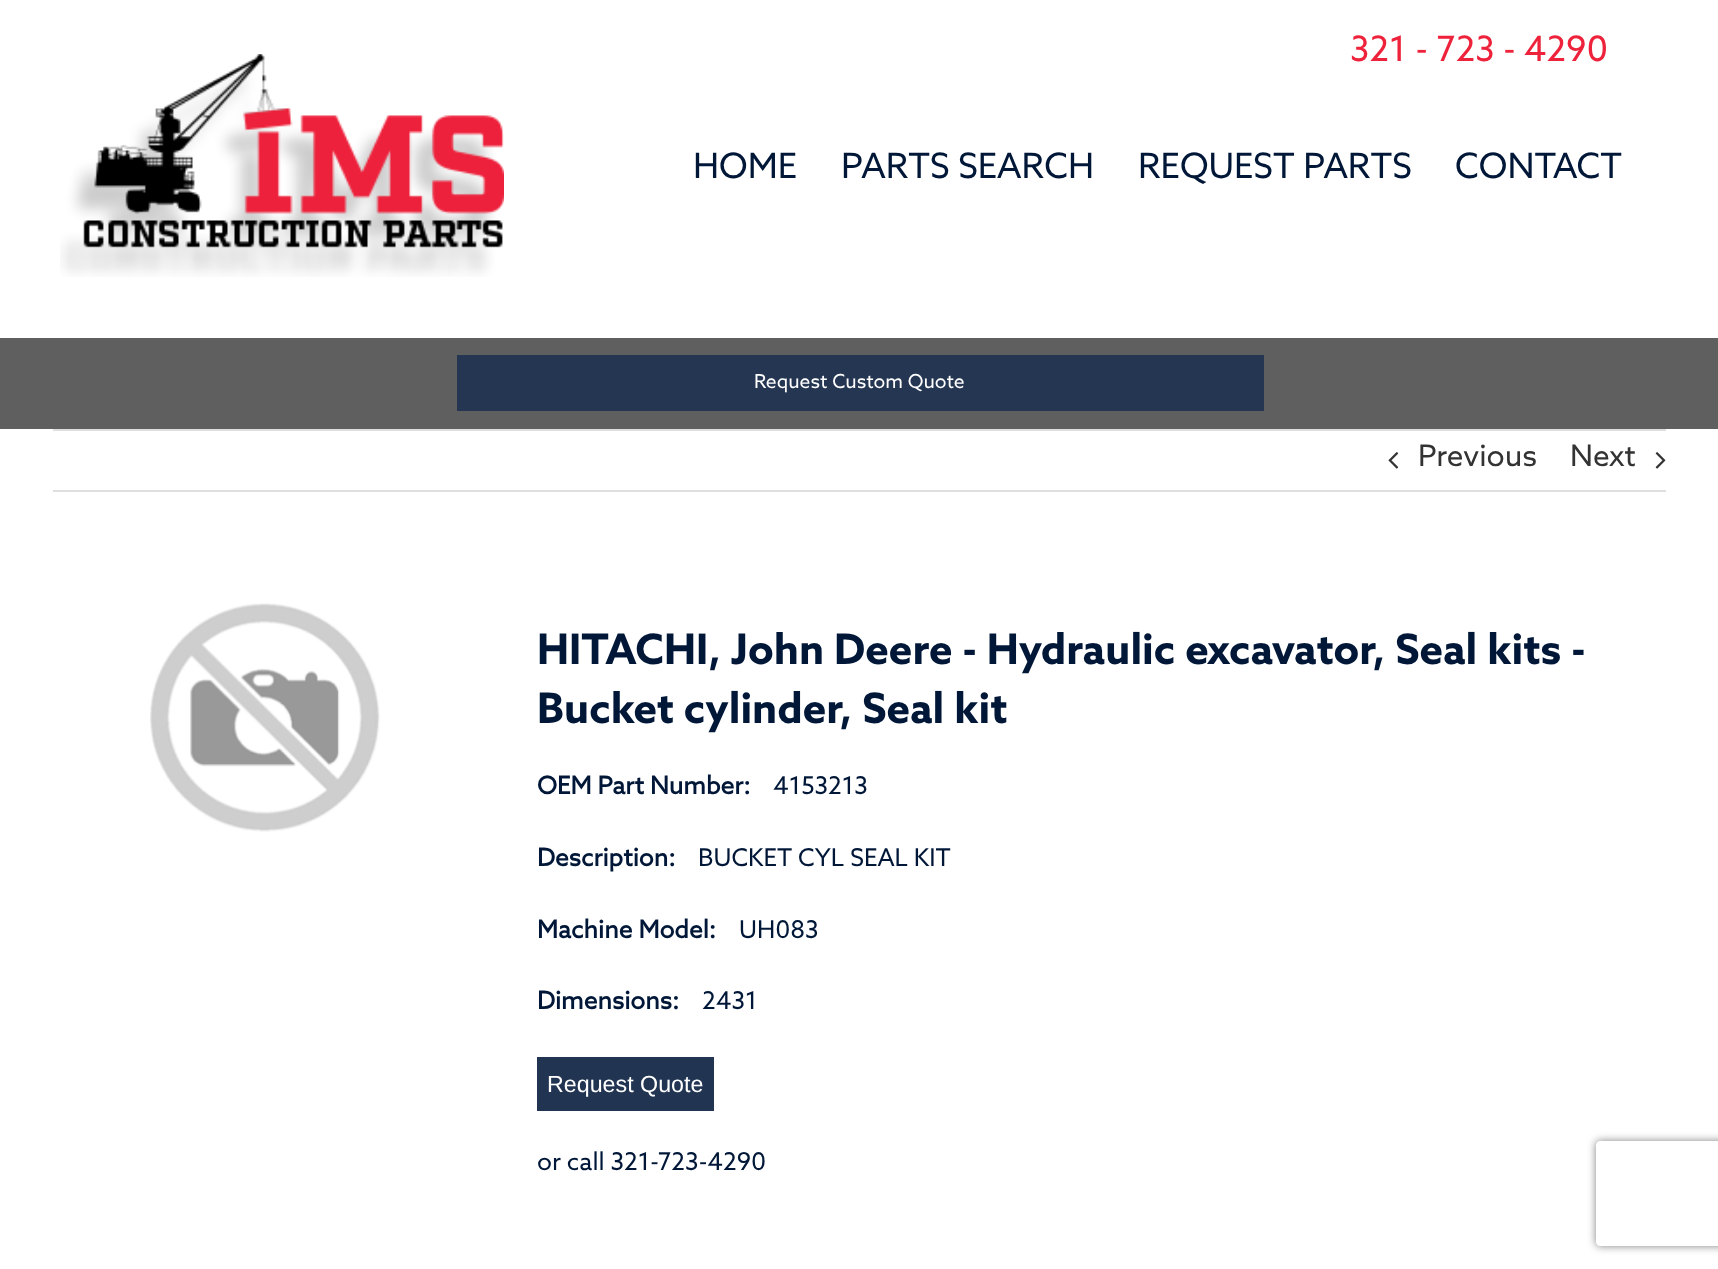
<!DOCTYPE html>
<meta charset="utf-8">
<style>body { margin: 0 } canvas { display: block }</style>
<canvas id="canvas" width="1718" height="1269"></canvas>
<img id="img1" src="img_01.png" hidden>
<img id="img2" src="img_02.png" hidden>
<img id="img3" src="img_03.png" hidden>
<img id="img4" src="img_04.png" hidden>
<script>
window.onload = function () {
	const canvas = document.getElementById("canvas");
	const ctx = canvas.getContext("2d");
	ctx.miterLimit = 4;
	ctx.fontKerning = "normal";
	function txt(s, x, y) {
		ctx.fillText(s, x, y);
	}
	function fill(x, y, w, h) {
		ctx.fillRect(x, y, w, h);
	}
	function img(id, x, y, w, h) {
		ctx.drawImage(document.getElementById(id), x, y, w, h);
	}

	ctx.fillStyle = "#FFFFFF";
	fill(0, 0, 1718, 1269);
	img("img1", 60, 54, 444, 223);
	ctx.fillStyle = "#5F5F5F";
	fill(0, 338, 1718, 91);
	ctx.fillStyle = "#253652";
	fill(457, 355, 807, 56);
	ctx.fillStyle = "#E0DEDE";
	fill(53, 429, 1613, 2);
	fill(53, 490, 1613, 2);
	img("img2", 1388, 452, 11, 17);
	img("img3", 1655, 452, 11, 17);
	img("img4", 150, 603, 230, 229);
	ctx.fillStyle = "#213452";
	fill(537, 1057, 177, 54);
	ctx.save();
	ctx.beginPath();
	ctx.moveTo(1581, 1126);
	ctx.lineTo(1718, 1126);
	ctx.lineTo(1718, 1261);
	ctx.lineTo(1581, 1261);
	ctx.closePath();
	ctx.moveTo(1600, 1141);
	ctx.lineTo(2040, 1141);
	ctx.bezierCurveTo(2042, 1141, 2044, 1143, 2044, 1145);
	ctx.lineTo(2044, 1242);
	ctx.bezierCurveTo(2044, 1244, 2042, 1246, 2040, 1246);
	ctx.lineTo(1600, 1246);
	ctx.bezierCurveTo(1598, 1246, 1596, 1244, 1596, 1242);
	ctx.lineTo(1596, 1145);
	ctx.bezierCurveTo(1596, 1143, 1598, 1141, 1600, 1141);
	ctx.closePath();
	ctx.clip("evenodd");
	ctx.fillStyle = "#808080";
	ctx.filter = "blur(4.5px)";
	ctx.beginPath();
	ctx.roundRect(1596, 1141, 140, 105, 4);
	ctx.fill();
	ctx.filter = "none";
	ctx.restore();
	ctx.font = "35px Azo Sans";
	ctx.fillStyle = "#EE223B";
	txt("321 - 723 - 4290", 1350, 61);
	ctx.fillStyle = "#001738";
	txt("HOME", 693, 178);
	txt("PARTS SEARCH", 841, 178);
	txt("REQUEST PARTS", 1138, 178);
	txt("CONTACT", 1455, 178);
	ctx.font = "19.25px Azo Sans";
	ctx.fillStyle = "#FFFFFF";
	txt("Request Custom Quote", 754, 388);
	ctx.font = "29.75px Azo Sans";
	ctx.fillStyle = "#333333";
	txt("Previous", 1418, 466);
	txt("Next", 1570, 466);
	ctx.font = "bold 42px Azo Sans";
	ctx.fillStyle = "#001738";
	txt("HITACHI, John Deere - Hydraulic excavator, Seal kits -", 537, 664);
	txt("Bucket cylinder, Seal kit", 537, 723);
	ctx.font = "bold 24.5px 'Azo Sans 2'";
	txt("OEM Part Number:", 537, 794);
	ctx.font = "24.5px Azo Sans";
	txt("4153213", 773, 794);
	ctx.font = "bold 24.5px 'Azo Sans 2'";
	txt("Description:", 537, 866);
	ctx.font = "24.5px Azo Sans";
	txt("BUCKET CYL SEAL KIT", 698, 866);
	ctx.font = "bold 24.5px 'Azo Sans 2'";
	txt("Machine Model:", 537, 938);
	ctx.font = "24.5px Azo Sans";
	txt("UH083", 739, 938);
	ctx.font = "bold 24.5px 'Azo Sans 2'";
	txt("Dimensions:", 537, 1009);
	ctx.font = "24.5px Azo Sans";
	txt("2431", 702, 1009);
	ctx.font = "23.25px Liberation Sans";
	ctx.fillStyle = "#FFFFFF";
	txt("Request Quote", 547, 1092);
	ctx.font = "24.5px Azo Sans";
	ctx.fillStyle = "#001738";
	txt("or call 321-723-4290", 537, 1170);
};
</script>
